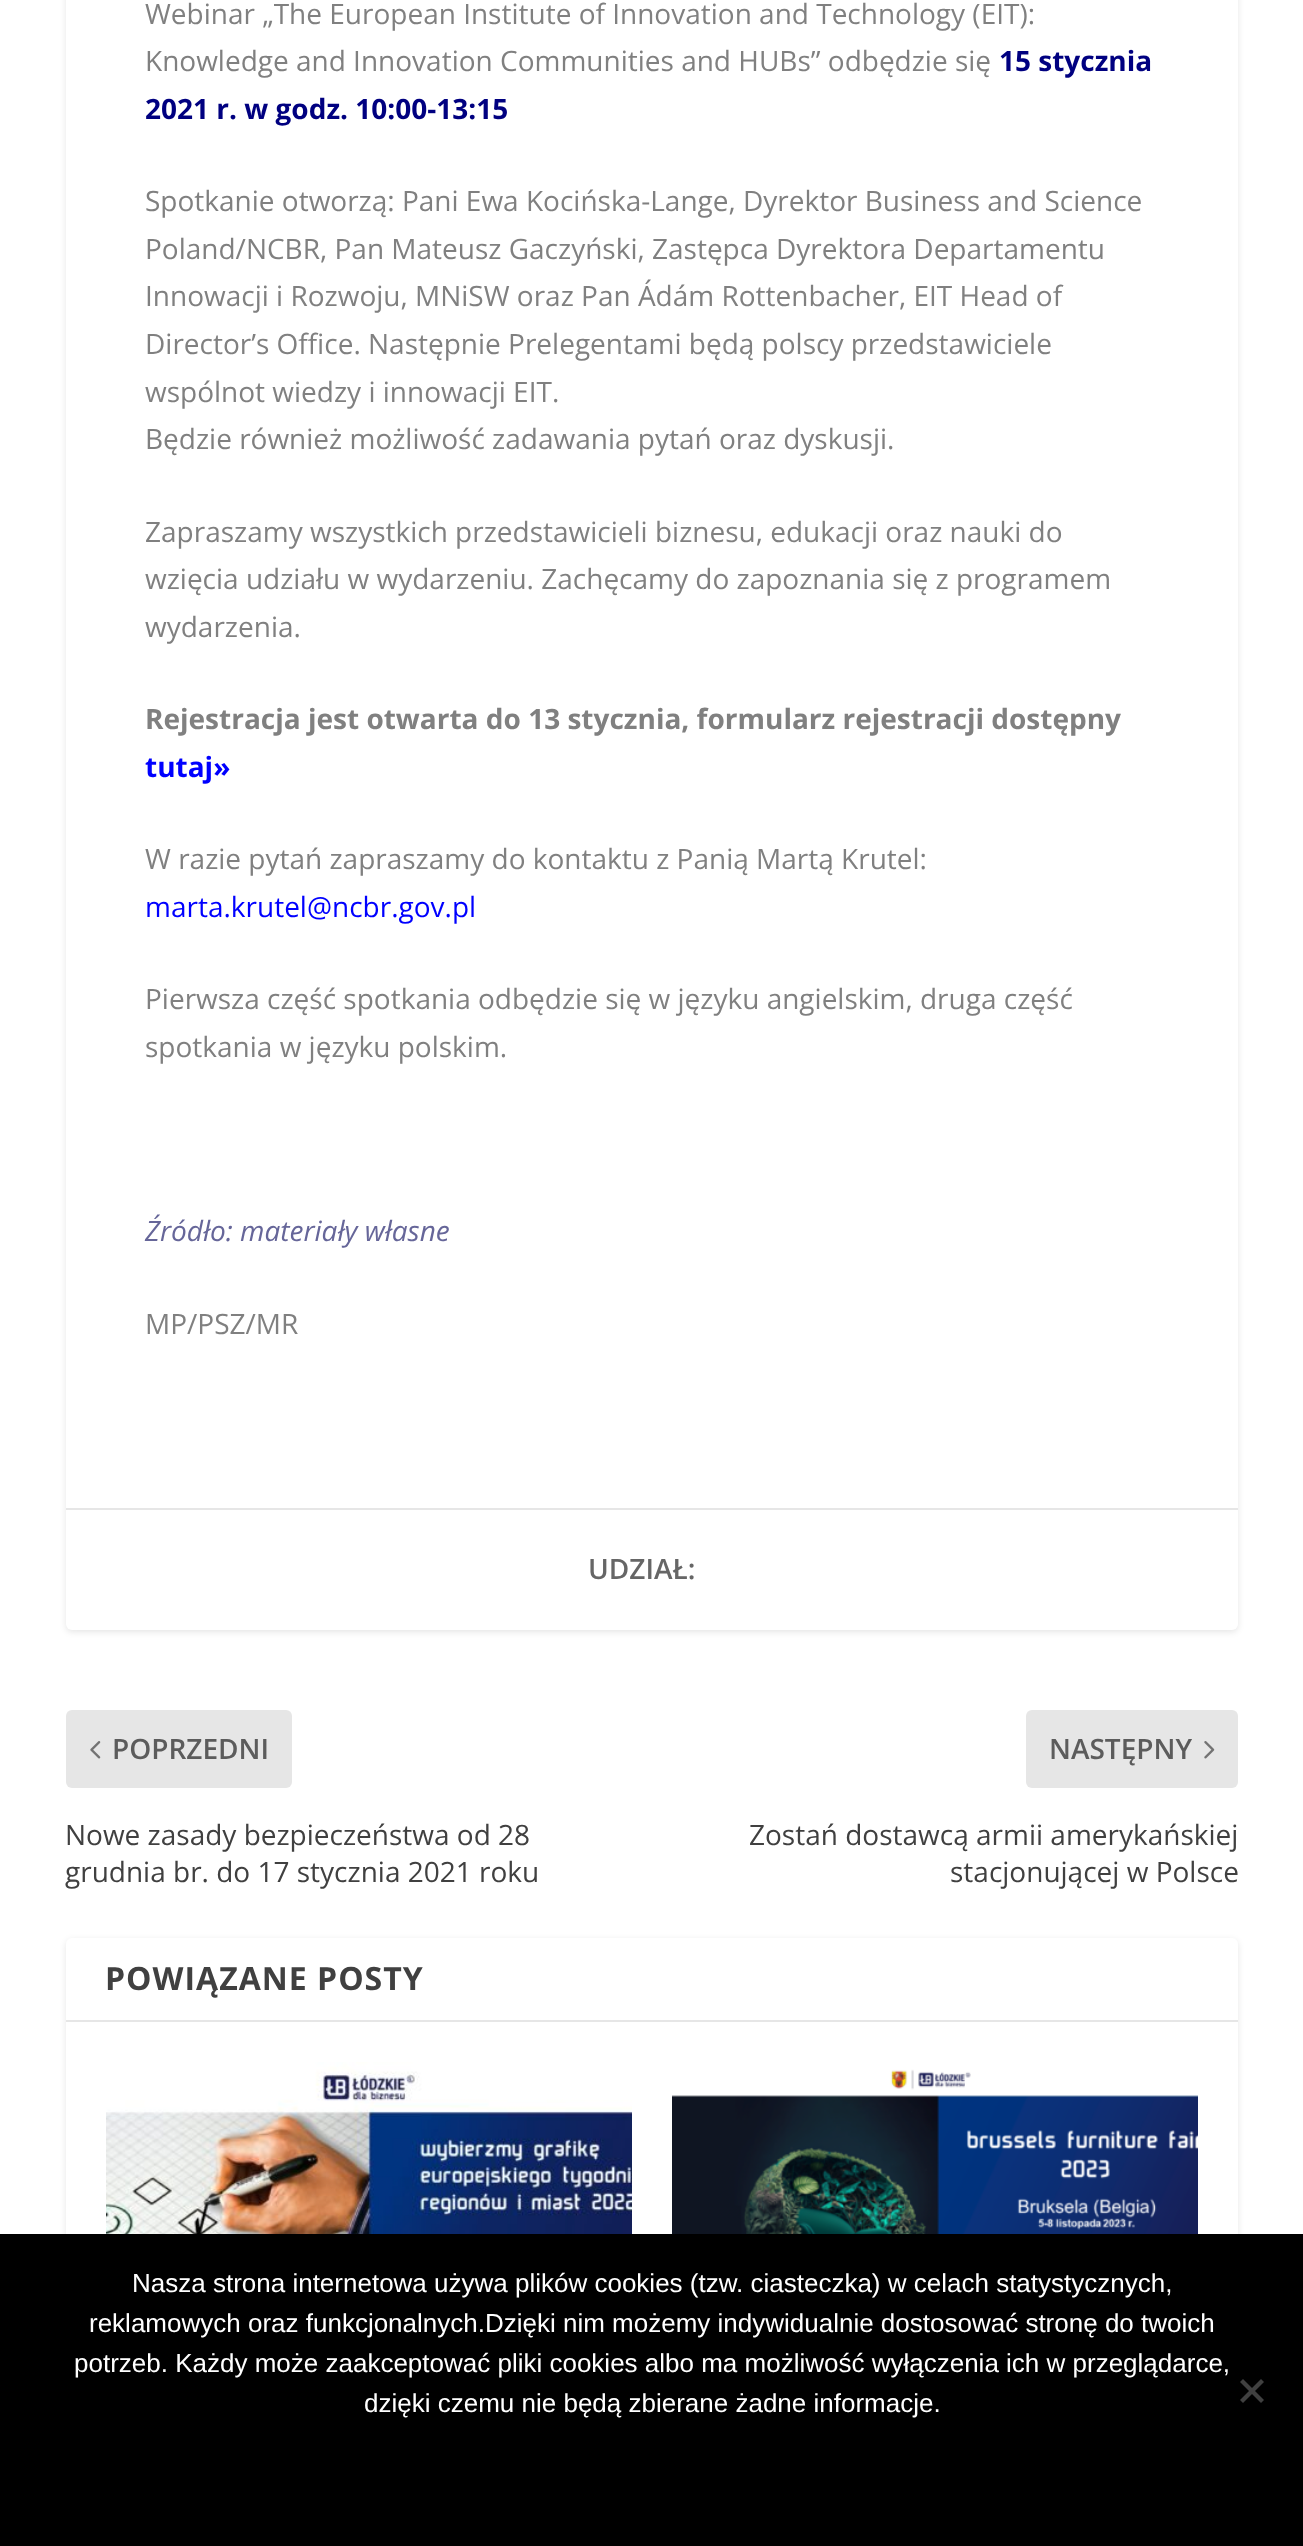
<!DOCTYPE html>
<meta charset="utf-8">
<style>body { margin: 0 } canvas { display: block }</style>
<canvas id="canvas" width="1303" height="2546"></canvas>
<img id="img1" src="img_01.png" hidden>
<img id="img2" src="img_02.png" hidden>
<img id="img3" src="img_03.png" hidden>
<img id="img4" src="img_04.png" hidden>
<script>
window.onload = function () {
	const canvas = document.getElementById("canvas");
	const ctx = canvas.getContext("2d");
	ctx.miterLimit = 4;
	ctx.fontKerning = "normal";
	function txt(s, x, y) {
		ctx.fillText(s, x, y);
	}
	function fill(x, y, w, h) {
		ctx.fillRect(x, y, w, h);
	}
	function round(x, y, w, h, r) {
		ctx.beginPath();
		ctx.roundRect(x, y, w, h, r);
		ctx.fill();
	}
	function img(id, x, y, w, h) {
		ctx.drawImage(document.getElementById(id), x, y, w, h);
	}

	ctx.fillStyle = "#FFFFFF";
	fill(0, 0, 1303, 2546);
	ctx.fillStyle = "rgba(0, 0, 0, 0.1)";
	ctx.filter = "blur(3px)";
	ctx.beginPath();
	ctx.roundRect(66, -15, 1172, 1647, 6);
	ctx.fill();
	ctx.filter = "none";
	ctx.fillStyle = "#FFFFFF";
	round(66, -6, 1172, 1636, 6);
	ctx.fillStyle = "#E6E6E6";
	fill(66, 1508, 1172, 2);
	round(66, 1710, 226, 78, 6);
	img("img1", 90, 1741, 11, 18);
	round(1026, 1710, 212, 78, 6);
	img("img2", 1204, 1741, 11, 18);
	ctx.fillStyle = "rgba(0, 0, 0, 0.1)";
	ctx.filter = "blur(3px)";
	ctx.beginPath();
	ctx.roundRect(66, 1940, 1172, 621, 6);
	ctx.fill();
	ctx.filter = "none";
	ctx.fillStyle = "#FFFFFF";
	round(66, 1938, 1172, 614, 6);
	ctx.fillStyle = "#E6E6E6";
	fill(66, 2020, 1172, 2);
	img("img3", 106, 2062, 526, 172);
	img("img4", 672, 2062, 526, 172);
	ctx.fillStyle = "#000000";
	fill(0, 2234, 1303, 312);
	ctx.fillStyle = "rgba(0, 0, 0, 0.05)";
	fill(1226, 2370, 2, 6);
	ctx.fillStyle = "#404040";
	ctx.beginPath();
	ctx.moveTo(1261, 2379);
	ctx.lineTo(1264, 2382);
	ctx.lineTo(1243, 2403);
	ctx.lineTo(1240, 2400);
	ctx.closePath();
	ctx.fill();
	ctx.beginPath();
	ctx.moveTo(1240, 2382);
	ctx.lineTo(1243, 2379);
	ctx.lineTo(1264, 2400);
	ctx.lineTo(1261, 2403);
	ctx.closePath();
	ctx.fill();
	ctx.font = "28px Open Sans";
	ctx.fillStyle = "#808080";
	txt("Webinar „The European Institute of Innovation and Technology (EIT):", 145, 24);
	txt("Knowledge and Innovation Communities and HUBs” odbędzie się", 145, 71);
	ctx.font = "bold 28px Open Sans";
	ctx.fillStyle = "#000080";
	txt("15 stycznia", 999, 71);
	txt("2021 r. w godz. 10:00-13:15", 145, 119);
	ctx.font = "28px Open Sans";
	ctx.fillStyle = "#808080";
	txt("Spotkanie otworzą: Pani Ewa Kocińska-Lange, Dyrektor Business and Science", 145, 211);
	txt("Poland/NCBR, Pan Mateusz Gaczyński, Zastępca Dyrektora Departamentu", 145, 259);
	txt("Innowacji i Rozwoju, MNiSW oraz Pan Ádám Rottenbacher, EIT Head of", 145, 306);
	txt("Director’s Office. Następnie Prelegentami będą polscy przedstawiciele", 145, 354);
	txt("wspólnot wiedzy i innowacji EIT.", 145, 402);
	txt("Będzie również możliwość zadawania pytań oraz dyskusji.", 145, 449);
	txt("Zapraszamy wszystkich przedstawicieli biznesu, edukacji oraz nauki do", 145, 542);
	txt("wzięcia udziału w wydarzeniu. Zachęcamy do zapoznania się z programem", 145, 589);
	txt("wydarzenia.", 145, 637);
	ctx.font = "bold 28px Open Sans";
	txt("Rejestracja jest otwarta do 13 stycznia, formularz rejestracji dostępny", 145, 729);
	ctx.fillStyle = "#0000FF";
	txt("tutaj»", 145, 777);
	ctx.font = "28px Open Sans";
	ctx.fillStyle = "#808080";
	txt("W razie pytań zapraszamy do kontaktu z Panią Martą Krutel:", 145, 869);
	ctx.fillStyle = "#0000FF";
	txt("marta.krutel@ncbr.gov.pl", 145, 917);
	ctx.fillStyle = "#808080";
	txt("Pierwsza część spotkania odbędzie się w języku angielskim, druga część", 145, 1009);
	txt("spotkania w języku polskim.", 145, 1057);
	ctx.font = "italic 28px Open Sans";
	ctx.fillStyle = "#666699";
	txt("Źródło: materiały własne", 145, 1241);
	ctx.font = "28px Open Sans";
	ctx.fillStyle = "#808080";
	txt("MP/PSZ/MR", 145, 1334);
	ctx.font = "600 28px Open Sans";
	ctx.fillStyle = "#666666";
	txt("UDZIAŁ:", 588, 1579);
	ctx.fillStyle = "#5C5C5C";
	txt("POPRZEDNI", 112, 1759);
	ctx.font = "28px Open Sans";
	ctx.fillStyle = "#404040";
	txt("Nowe zasady bezpieczeństwa od 28", 65, 1845);
	txt("grudnia br. do 17 stycznia 2021 roku", 65, 1882);
	ctx.font = "600 28px Open Sans";
	ctx.fillStyle = "#5C5C5C";
	txt("NASTĘPNY", 1049, 1759);
	ctx.font = "28px Open Sans";
	ctx.fillStyle = "#404040";
	txt("Zostań dostawcą armii amerykańskiej", 749, 1845);
	txt("stacjonującej w Polsce", 950, 1882);
	ctx.letterSpacing = "1px";
	ctx.font = "bold 32px Open Sans";
	txt("POWIĄZANE POSTY", 105, 1990);
	ctx.letterSpacing = "0px";
	ctx.font = "26px Liberation Sans";
	ctx.fillStyle = "#FFFFFF";
	txt("Nasza strona internetowa używa plików cookies (tzw. ciasteczka) w celach statystycznych,", 132, 2292);
	txt("reklamowych oraz funkcjonalnych.Dzięki nim możemy indywidualnie dostosować stronę do twoich", 89, 2332);
	txt("potrzeb. Każdy może zaakceptować pliki cookies albo ma możliwość wyłączenia ich w przeglądarce,", 74, 2372);
	txt("dzięki czemu nie będą zbierane żadne informacje.", 364, 2412);
};
</script>
